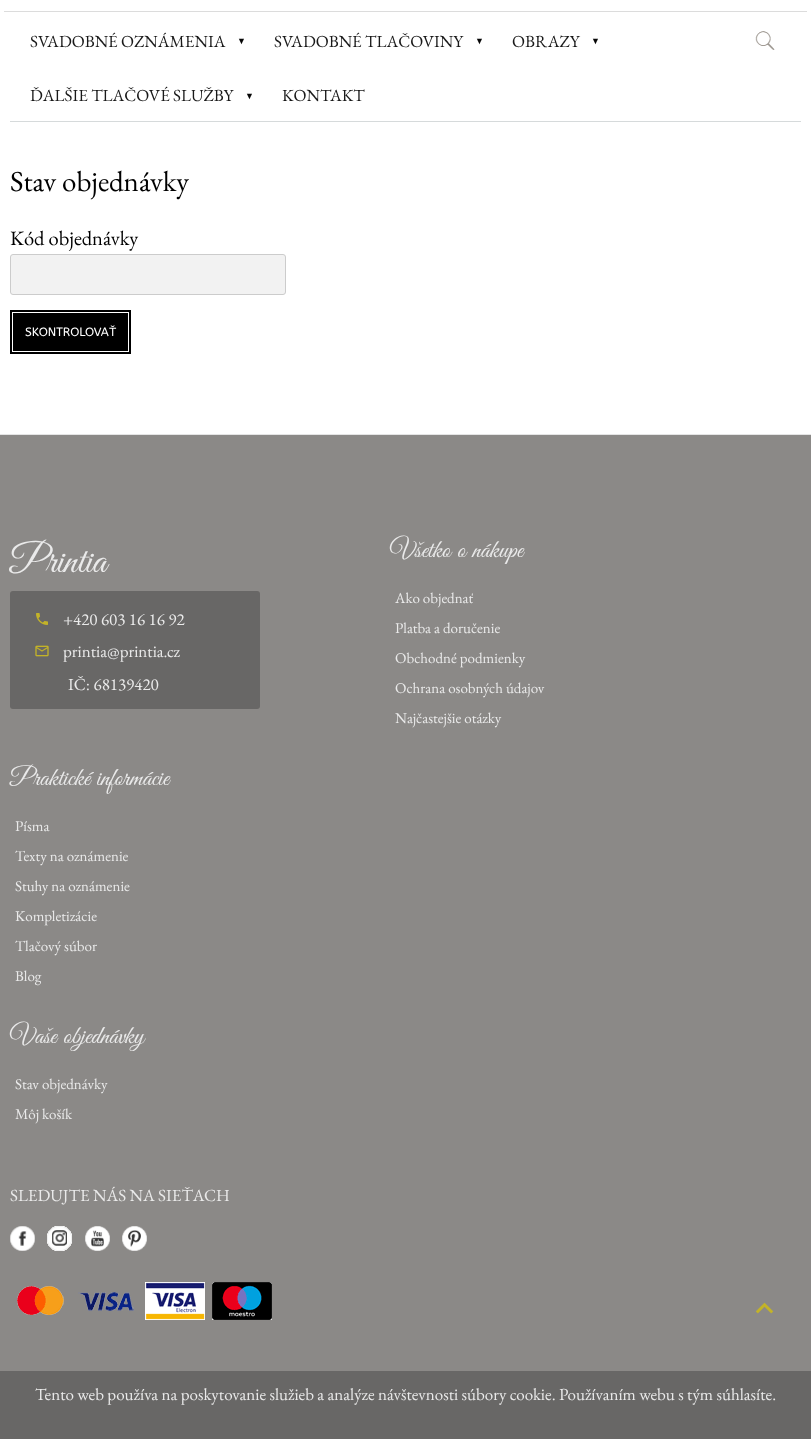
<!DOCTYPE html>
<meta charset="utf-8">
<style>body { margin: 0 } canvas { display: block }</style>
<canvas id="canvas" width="811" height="1439"></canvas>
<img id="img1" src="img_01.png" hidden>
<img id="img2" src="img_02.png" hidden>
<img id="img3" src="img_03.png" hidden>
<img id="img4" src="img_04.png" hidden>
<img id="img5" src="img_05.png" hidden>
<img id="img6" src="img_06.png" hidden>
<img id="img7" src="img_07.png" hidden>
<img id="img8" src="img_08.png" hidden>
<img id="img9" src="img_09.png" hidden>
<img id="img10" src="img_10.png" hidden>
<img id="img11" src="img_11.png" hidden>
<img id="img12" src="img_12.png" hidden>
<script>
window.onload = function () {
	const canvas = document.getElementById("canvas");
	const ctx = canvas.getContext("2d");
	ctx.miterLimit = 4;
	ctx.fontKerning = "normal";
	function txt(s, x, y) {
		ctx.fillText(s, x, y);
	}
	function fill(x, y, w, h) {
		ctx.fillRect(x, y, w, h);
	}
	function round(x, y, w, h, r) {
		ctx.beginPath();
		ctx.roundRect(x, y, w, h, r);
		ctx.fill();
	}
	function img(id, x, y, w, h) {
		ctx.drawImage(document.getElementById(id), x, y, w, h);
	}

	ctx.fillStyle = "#FFFFFF";
	fill(0, 0, 811, 1439);
	ctx.fillStyle = "#DCDCDC";
	fill(4, 11, 803, 1);
	ctx.fillStyle = "#D6DADB";
	fill(10, 121, 791, 1);
	img("img1", 755, 31, 20, 19);
	ctx.fillStyle = "#F2F2F2";
	ctx.beginPath();
	ctx.roundRect(10.5, 254.5, 275, 40, 2.5);
	ctx.fill();
	ctx.strokeStyle = "#CCCCCC";
	ctx.stroke();
	ctx.fillStyle = "#000000";
	fill(13, 313, 115, 38);
	ctx.strokeStyle = "#000000";
	ctx.lineWidth = 2;
	ctx.strokeRect(11, 311, 119, 42);
	ctx.fillStyle = "#8B8987";
	fill(0, 435, 811, 936);
	ctx.fillStyle = "#E4E4E4";
	fill(0, 434, 811, 1);
	ctx.fillStyle = "#686766";
	round(10, 591, 250, 118, 3);
	img("img2", 36, 613, 12, 12);
	img("img3", 35, 645, 14, 12);
	img("img4", 10, 1226, 25, 25);
	img("img5", 47, 1226, 25, 25);
	img("img6", 85, 1226, 25, 25);
	img("img7", 122, 1226, 25, 25);
	img("img8", 17, 1286, 47, 29);
	img("img9", 78, 1292, 56, 19);
	img("img10", 145, 1282, 60, 38);
	img("img11", 212, 1282, 60, 38);
	img("img12", 755, 1302, 19, 12);
	fill(0, 1371, 811, 68);
	ctx.font = "17px EB Garamond";
	ctx.fillStyle = "#191919";
	txt("SVADOBNÉ OZNÁMENIA", 30, 47);
	ctx.font = "9px Liberation Serif";
	ctx.fillStyle = "#070707";
	txt("▼", 237, 44);
	ctx.font = "17px EB Garamond";
	ctx.fillStyle = "#191919";
	txt("SVADOBNÉ TLAČOVINY", 274, 47);
	ctx.font = "9px Liberation Serif";
	ctx.fillStyle = "#070707";
	txt("▼", 475, 44);
	ctx.font = "17px EB Garamond";
	ctx.fillStyle = "#191919";
	txt("OBRAZY", 512, 47);
	ctx.font = "9px Liberation Serif";
	ctx.fillStyle = "#070707";
	txt("▼", 591, 44);
	ctx.font = "17px EB Garamond";
	ctx.fillStyle = "#191919";
	txt("ĎALŠIE TLAČOVÉ SLUŽBY", 30, 101);
	ctx.font = "9px Liberation Serif";
	ctx.fillStyle = "#070707";
	txt("▼", 245, 99);
	ctx.font = "17px EB Garamond";
	ctx.fillStyle = "#191919";
	txt("KONTAKT", 282, 101);
	ctx.font = "29px EB Garamond";
	ctx.fillStyle = "#000000";
	txt("Stav objednávky", 10, 191);
	ctx.font = "20.5px EB Garamond";
	txt("Kód objednávky", 10, 245);
	ctx.font = "12px ABeeZee";
	ctx.fillStyle = "#FFFFFF";
	txt("SKONTROLOVA", 25, 336);
	ctx.font = "12px Liberation Sans";
	txt("Ť", 109, 336);
	ctx.font = "40px Great Vibes";
	ctx.fillStyle = "#EAEAEA";
	txt("Printia", 10, 572);
	ctx.font = "17px EB Garamond";
	txt("+420 603 16 16 92", 63, 625);
	txt("printia@printia.cz", 63, 657);
	txt("IČ: 68139420", 68, 690);
	ctx.font = "25.5px Great Vibes";
	txt("Všetko o nákupe", 390, 557);
	ctx.font = "15px EB Garamond";
	txt("Ako objednať", 395, 603);
	txt("Platba a doručenie", 395, 633);
	txt("Obchodné podmienky", 395, 663);
	txt("Ochrana osobných údajov", 395, 693);
	txt("Najčastejšie otázky", 395, 723);
	ctx.font = "25.5px Great Vibes";
	txt("Praktické informácie", 10, 785);
	ctx.font = "15px EB Garamond";
	txt("Písma", 15, 831);
	txt("Texty na oznámenie", 15, 861);
	txt("Stuhy na oznámenie", 15, 891);
	txt("Kompletizácie", 15, 921);
	txt("Tlačový súbor", 15, 951);
	txt("Blog", 15, 981);
	ctx.font = "25.5px Great Vibes";
	txt("Vaše objednávky", 10, 1043);
	ctx.font = "15px EB Garamond";
	txt("Stav objednávky", 15, 1089);
	txt("Môj košík", 15, 1119);
	ctx.font = "17px EB Garamond";
	txt("SLEDUJTE NÁS NA SIEŤACH", 10, 1201);
	txt("Tento web používa na poskytovanie služieb a analýze návštevnosti súbory cookie. Používaním webu s tým súhlasíte.", 35, 1400);
};
</script>
